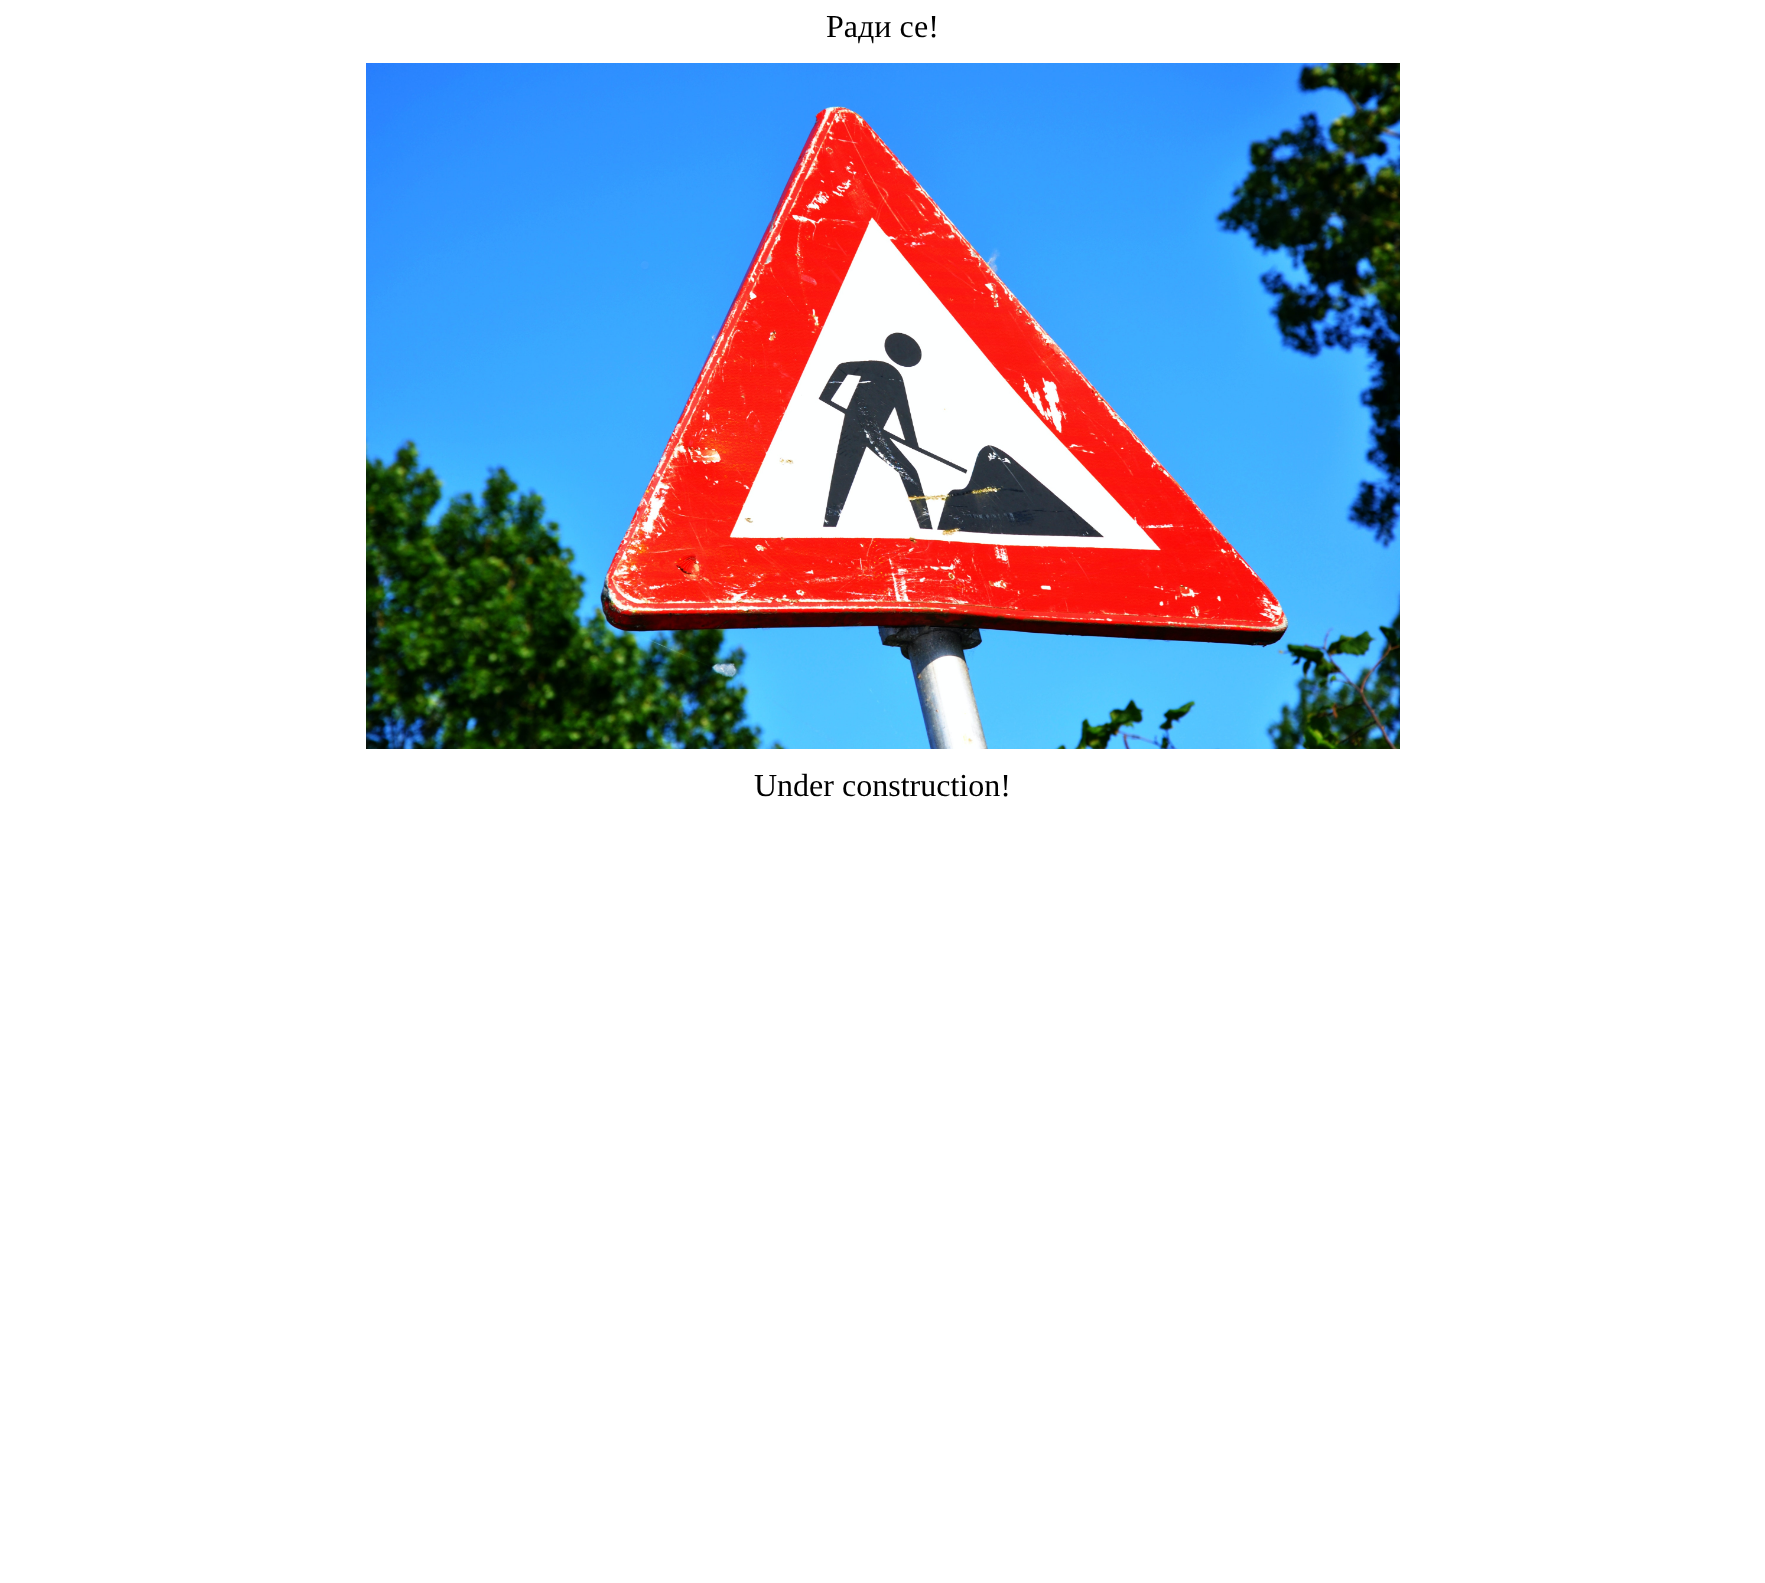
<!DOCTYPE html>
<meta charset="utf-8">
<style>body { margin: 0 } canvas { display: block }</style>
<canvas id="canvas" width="1765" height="1583"></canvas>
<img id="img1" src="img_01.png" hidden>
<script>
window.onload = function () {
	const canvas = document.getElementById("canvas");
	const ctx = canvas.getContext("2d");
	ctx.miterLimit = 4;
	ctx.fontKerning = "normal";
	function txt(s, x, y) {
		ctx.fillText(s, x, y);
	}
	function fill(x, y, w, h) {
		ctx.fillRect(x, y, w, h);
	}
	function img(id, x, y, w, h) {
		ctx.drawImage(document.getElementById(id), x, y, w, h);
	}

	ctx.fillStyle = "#FFFFFF";
	fill(0, 0, 1765, 1583);
	img("img1", 366, 63, 1034, 686);
	ctx.font = "32px Liberation Serif";
	ctx.fillStyle = "#000000";
	txt("Ради се!", 826, 37);
	txt("Under construction!", 754, 796);
};
</script>
